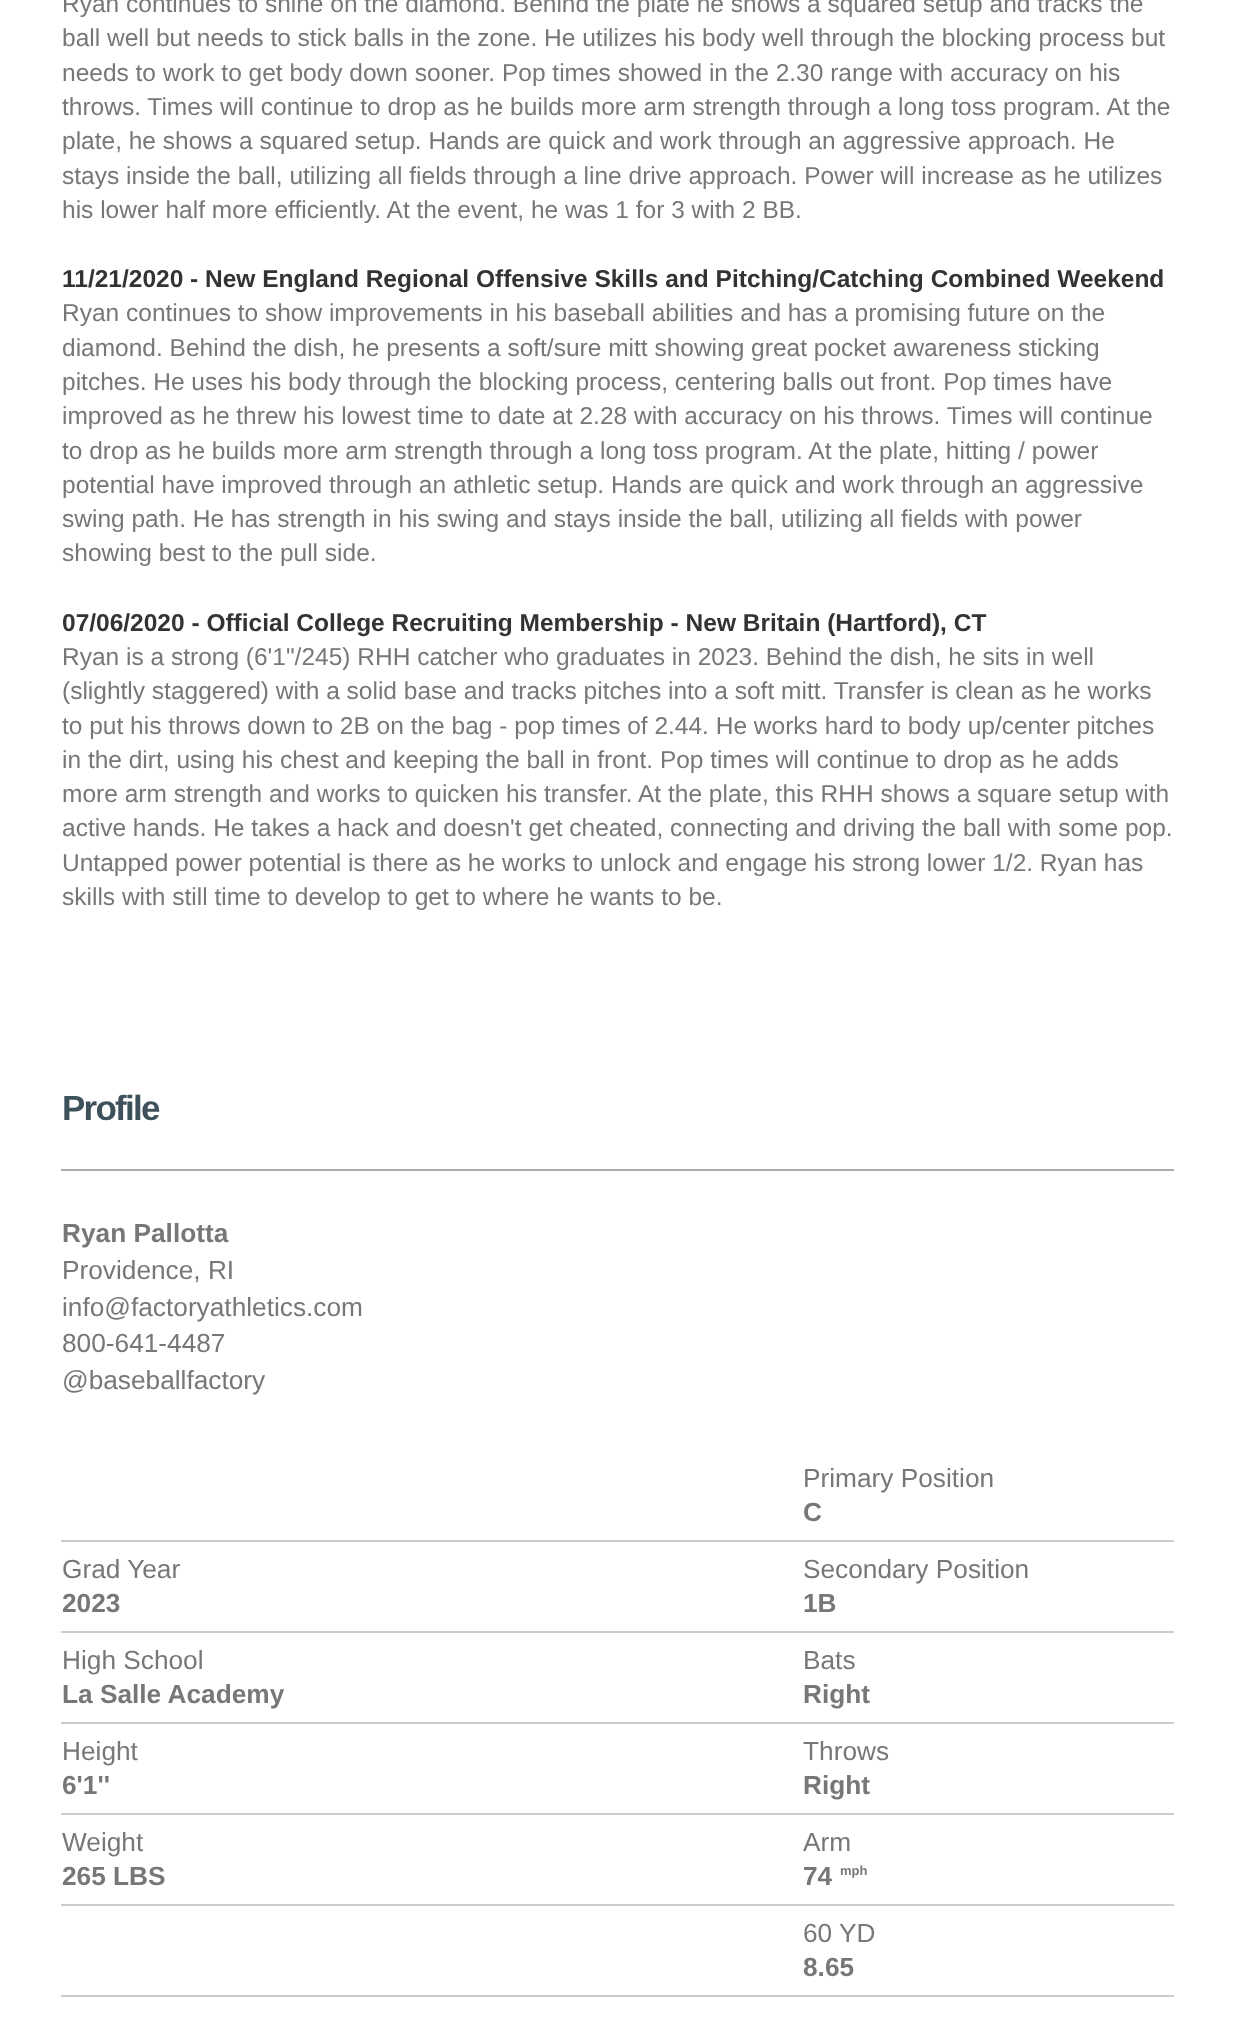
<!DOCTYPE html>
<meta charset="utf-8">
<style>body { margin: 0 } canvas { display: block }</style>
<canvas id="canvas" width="1234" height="2031"></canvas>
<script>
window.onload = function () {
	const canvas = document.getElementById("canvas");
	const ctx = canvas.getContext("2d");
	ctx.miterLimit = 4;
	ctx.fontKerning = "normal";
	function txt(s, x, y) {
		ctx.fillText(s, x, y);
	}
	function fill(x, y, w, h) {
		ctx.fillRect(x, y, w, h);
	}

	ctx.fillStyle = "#FFFFFF";
	fill(0, 0, 1234, 2031);
	ctx.fillStyle = "#AAAAAA";
	fill(61, 1169, 1113, 2);
	ctx.fillStyle = "#CCCCCC";
	fill(61, 1540, 1113, 2);
	fill(61, 1631, 1113, 2);
	fill(61, 1722, 1113, 2);
	fill(61, 1813, 1113, 2);
	fill(61, 1904, 1113, 2);
	fill(61, 1995, 1113, 2);
	ctx.font = "24.5px Liberation Sans";
	ctx.fillStyle = "#777777";
	txt("Ryan continues to shine on the diamond. Behind the plate he shows a squared setup and tracks the", 62, 12);
	txt("ball well but needs to stick balls in the zone. He utilizes his body well through the blocking process but", 62, 46);
	txt("needs to work to get body down sooner. Pop times showed in the 2.30 range with accuracy on his", 62, 81);
	txt("throws. Times will continue to drop as he builds more arm strength through a long toss program. At the", 62, 115);
	txt("plate, he shows a squared setup. Hands are quick and work through an aggressive approach. He", 62, 149);
	txt("stays inside the ball, utilizing all fields through a line drive approach. Power will increase as he utilizes", 62, 184);
	txt("his lower half more efficiently. At the event, he was 1 for 3 with 2 BB.", 62, 218);
	ctx.font = "bold 24.5px Liberation Sans";
	ctx.fillStyle = "#333333";
	txt("11/21/2020 - New England Regional Offensive Skills and Pitching/Catching Combined Weekend", 62, 287);
	ctx.font = "24.5px Liberation Sans";
	ctx.fillStyle = "#777777";
	txt("Ryan continues to show improvements in his baseball abilities and has a promising future on the", 62, 321);
	txt("diamond. Behind the dish, he presents a soft/sure mitt showing great pocket awareness sticking", 62, 356);
	txt("pitches. He uses his body through the blocking process, centering balls out front. Pop times have", 62, 390);
	txt("improved as he threw his lowest time to date at 2.28 with accuracy on his throws. Times will continue", 62, 424);
	txt("to drop as he builds more arm strength through a long toss program. At the plate, hitting / power", 62, 459);
	txt("potential have improved through an athletic setup. Hands are quick and work through an aggressive", 62, 493);
	txt("swing path. He has strength in his swing and stays inside the ball, utilizing all fields with power", 62, 527);
	txt("showing best to the pull side.", 62, 561);
	ctx.font = "bold 24.5px Liberation Sans";
	ctx.fillStyle = "#333333";
	txt("07/06/2020 - Official College Recruiting Membership - New Britain (Hartford), CT", 62, 631);
	ctx.font = "24.5px Liberation Sans";
	ctx.fillStyle = "#777777";
	txt("Ryan is a strong (6'1\"/245) RHH catcher who graduates in 2023. Behind the dish, he sits in well", 62, 665);
	txt("(slightly staggered) with a solid base and tracks pitches into a soft mitt. Transfer is clean as he works", 62, 699);
	txt("to put his throws down to 2B on the bag - pop times of 2.44. He works hard to body up/center pitches", 62, 734);
	txt("in the dirt, using his chest and keeping the ball in front. Pop times will continue to drop as he adds", 62, 768);
	txt("more arm strength and works to quicken his transfer. At the plate, this RHH shows a square setup with", 62, 802);
	txt("active hands. He takes a hack and doesn't get cheated, connecting and driving the ball with some pop.", 62, 836);
	txt("Untapped power potential is there as he works to unlock and engage his strong lower 1/2. Ryan has", 62, 871);
	txt("skills with still time to develop to get to where he wants to be.", 62, 905);
	ctx.letterSpacing = "-1.75px";
	ctx.font = "bold 35px Liberation Sans";
	ctx.fillStyle = "#3E515B";
	txt("Profile", 62, 1120);
	ctx.letterSpacing = "0px";
	ctx.font = "bold 26.25px Liberation Sans";
	ctx.fillStyle = "#777777";
	txt("Ryan Pallotta", 62, 1242);
	ctx.font = "26.25px Liberation Sans";
	txt("Providence, RI", 62, 1279);
	txt("info@factoryathletics.com", 62, 1316);
	txt("800-641-4487", 62, 1352);
	txt("@baseballfactory", 62, 1389);
	txt("Primary Position", 803, 1487);
	ctx.font = "bold 26.25px Liberation Sans";
	txt("C", 803, 1521);
	ctx.font = "26.25px Liberation Sans";
	txt("Grad Year", 62, 1578);
	ctx.font = "bold 26.25px Liberation Sans";
	txt("2023", 62, 1612);
	ctx.font = "26.25px Liberation Sans";
	txt("Secondary Position", 803, 1578);
	ctx.font = "bold 26.25px Liberation Sans";
	txt("1B", 803, 1612);
	ctx.font = "26.25px Liberation Sans";
	txt("High School", 62, 1669);
	ctx.font = "bold 26.25px Liberation Sans";
	txt("La Salle Academy", 62, 1703);
	ctx.font = "26.25px Liberation Sans";
	txt("Bats", 803, 1669);
	ctx.font = "bold 26.25px Liberation Sans";
	txt("Right", 803, 1703);
	ctx.font = "26.25px Liberation Sans";
	txt("Height", 62, 1760);
	ctx.font = "bold 26.25px Liberation Sans";
	txt("6'1''", 62, 1794);
	ctx.font = "26.25px Liberation Sans";
	txt("Throws", 803, 1760);
	ctx.font = "bold 26.25px Liberation Sans";
	txt("Right", 803, 1794);
	ctx.font = "26.25px Liberation Sans";
	txt("Weight", 62, 1851);
	ctx.font = "bold 26.25px Liberation Sans";
	txt("265 LBS", 62, 1885);
	ctx.font = "26.25px Liberation Sans";
	txt("Arm", 803, 1851);
	ctx.font = "bold 26.25px Liberation Sans";
	txt("74", 803, 1885);
	ctx.font = "bold 13px Liberation Sans";
	txt("mph", 840, 1875);
	ctx.font = "26.25px Liberation Sans";
	txt("60 YD", 803, 1942);
	ctx.font = "bold 26.25px Liberation Sans";
	txt("8.65", 803, 1976);
};
</script>
